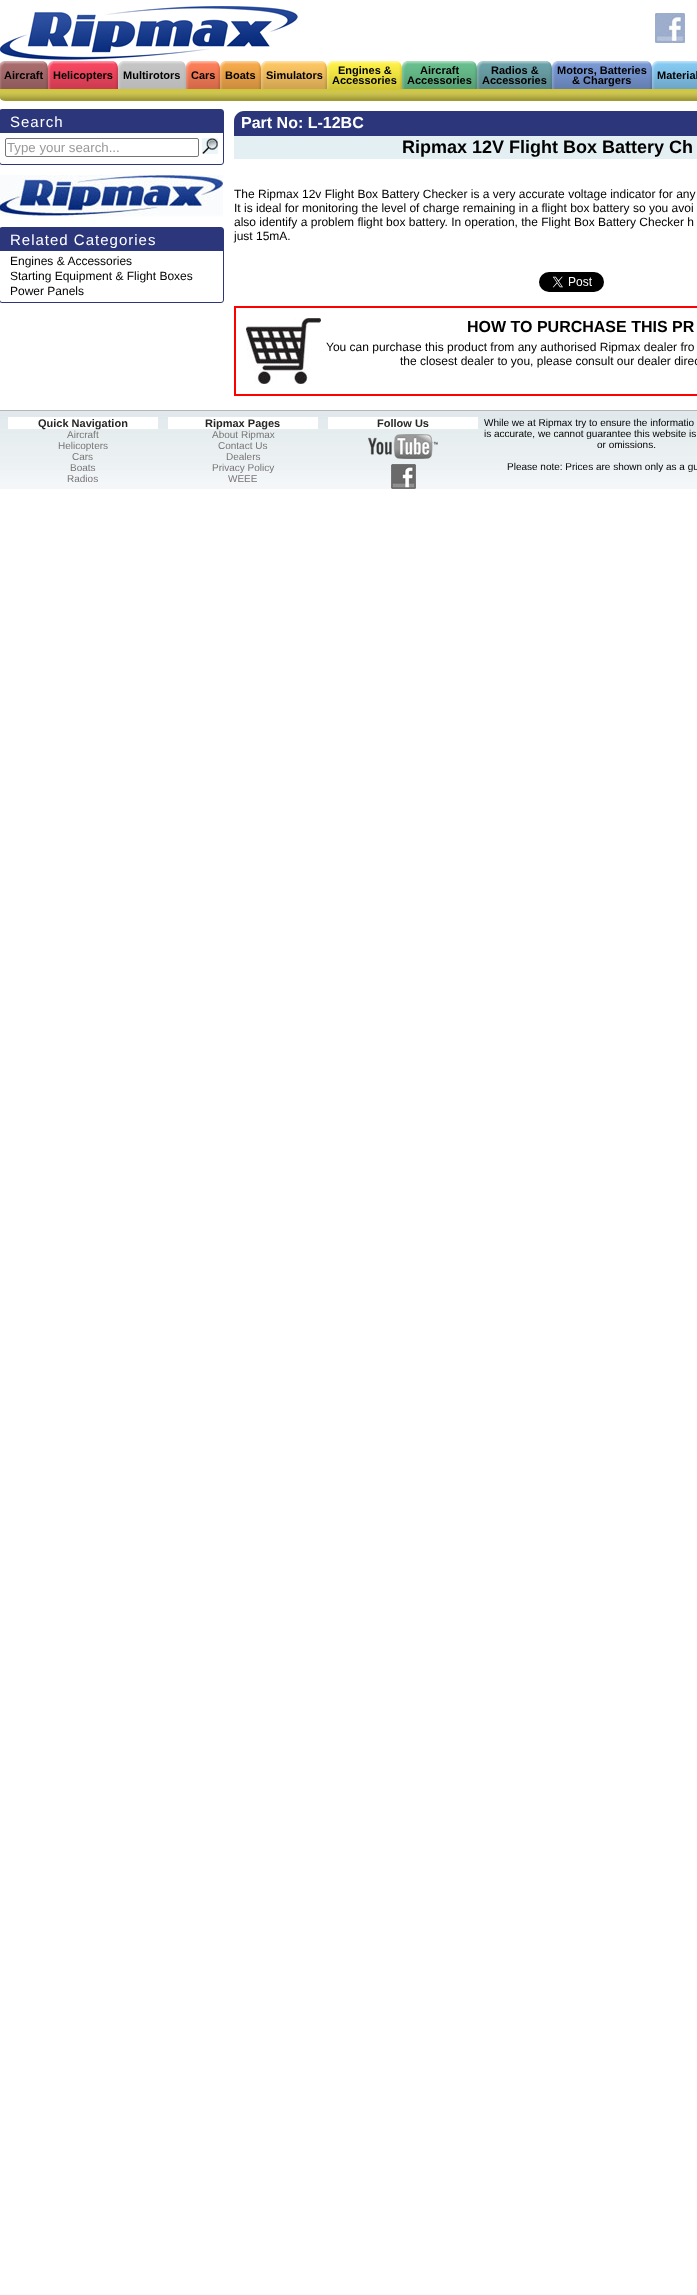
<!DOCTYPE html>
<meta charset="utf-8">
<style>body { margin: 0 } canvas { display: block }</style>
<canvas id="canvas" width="697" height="2295"></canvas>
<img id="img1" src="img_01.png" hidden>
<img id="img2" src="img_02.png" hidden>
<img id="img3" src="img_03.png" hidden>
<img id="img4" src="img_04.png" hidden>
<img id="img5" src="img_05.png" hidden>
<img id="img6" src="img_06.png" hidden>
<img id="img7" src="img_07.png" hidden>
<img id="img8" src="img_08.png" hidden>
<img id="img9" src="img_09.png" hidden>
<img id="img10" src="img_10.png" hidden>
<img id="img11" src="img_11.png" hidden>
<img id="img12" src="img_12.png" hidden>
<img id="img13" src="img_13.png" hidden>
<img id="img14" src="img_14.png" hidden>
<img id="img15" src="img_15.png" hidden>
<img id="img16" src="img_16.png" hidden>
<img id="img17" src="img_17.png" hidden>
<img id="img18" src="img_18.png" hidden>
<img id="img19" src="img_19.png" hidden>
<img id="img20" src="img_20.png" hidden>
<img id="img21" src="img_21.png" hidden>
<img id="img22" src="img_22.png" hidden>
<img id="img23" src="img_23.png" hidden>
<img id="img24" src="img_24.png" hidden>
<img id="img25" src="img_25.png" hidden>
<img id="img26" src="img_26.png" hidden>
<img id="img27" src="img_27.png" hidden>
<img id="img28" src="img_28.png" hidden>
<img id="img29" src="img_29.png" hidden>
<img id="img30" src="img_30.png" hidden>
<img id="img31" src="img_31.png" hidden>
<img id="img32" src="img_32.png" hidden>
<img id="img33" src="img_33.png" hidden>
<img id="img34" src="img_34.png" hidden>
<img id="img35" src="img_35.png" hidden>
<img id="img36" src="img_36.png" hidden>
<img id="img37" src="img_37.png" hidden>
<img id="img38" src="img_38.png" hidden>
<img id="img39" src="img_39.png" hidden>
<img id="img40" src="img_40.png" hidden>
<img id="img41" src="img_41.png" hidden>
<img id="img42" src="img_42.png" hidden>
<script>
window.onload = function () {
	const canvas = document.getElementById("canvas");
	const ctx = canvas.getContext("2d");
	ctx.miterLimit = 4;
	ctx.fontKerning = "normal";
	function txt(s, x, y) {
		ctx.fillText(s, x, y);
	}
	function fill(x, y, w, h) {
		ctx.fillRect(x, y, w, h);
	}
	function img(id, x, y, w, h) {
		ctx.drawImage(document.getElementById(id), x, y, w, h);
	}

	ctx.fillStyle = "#FFFFFF";
	fill(0, 0, 697, 2295);
	img("img1", 0, 6, 298, 54);
	img("img2", 655, 13, 30, 30);
	img("img3", 0, 61, 4, 28);
	img("img4", 4, 61, 39, 28);
	img("img5", 43, 61, 5, 28);
	img("img6", 48, 61, 5, 28);
	img("img7", 53, 61, 60, 28);
	img("img8", 113, 61, 5, 28);
	img("img9", 118, 61, 5, 28);
	img("img10", 123, 61, 58, 28);
	img("img11", 181, 61, 5, 28);
	img("img12", 186, 61, 5, 28);
	img("img13", 191, 61, 24, 28);
	img("img14", 215, 61, 5, 28);
	img("img15", 220, 61, 5, 28);
	img("img16", 225, 61, 31, 28);
	img("img17", 256, 61, 5, 28);
	img("img18", 261, 61, 5, 28);
	img("img19", 266, 61, 56, 28);
	img("img20", 322, 61, 5, 28);
	img("img21", 327, 61, 5, 28);
	img("img22", 332, 61, 65, 28);
	img("img23", 397, 61, 5, 28);
	img("img24", 402, 61, 5, 28);
	img("img25", 407, 61, 65, 28);
	img("img26", 472, 61, 5, 28);
	img("img27", 477, 61, 5, 28);
	img("img28", 482, 61, 65, 28);
	img("img29", 547, 61, 5, 28);
	img("img30", 552, 61, 5, 28);
	img("img31", 557, 61, 90, 28);
	img("img32", 647, 61, 5, 28);
	img("img33", 652, 61, 5, 28);
	img("img34", 657, 61, 40, 28);
	img("img35", 0, 89, 697, 12);
	ctx.beginPath();
	ctx.roundRect(-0.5, 109.5, 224, 55, 2.5);
	ctx.strokeStyle = "#2B367B";
	ctx.stroke();
	ctx.fillStyle = "#2B367B";
	fill(0, 110, 223, 23);
	ctx.beginPath();
	ctx.roundRect(5.5, 138.5, 193, 18, 1.5);
	ctx.strokeStyle = "#767676";
	ctx.stroke();
	img("img36", 202, 138, 16, 16);
	img("img37", 0, 175, 223, 42);
	ctx.beginPath();
	ctx.roundRect(-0.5, 227.5, 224, 75, 2.5);
	ctx.strokeStyle = "#2B367B";
	ctx.stroke();
	fill(0, 228, 223, 23);
	ctx.beginPath();
	ctx.moveTo(244, 111);
	ctx.lineTo(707, 111);
	ctx.lineTo(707, 136);
	ctx.lineTo(234, 136);
	ctx.lineTo(234, 121);
	ctx.bezierCurveTo(234, 115.5, 238.5, 111, 244, 111);
	ctx.closePath();
	ctx.fill();
	ctx.fillStyle = "#E3EFF2";
	fill(234, 136, 463, 23);
	img("img38", 539, 272, 65, 20);
	ctx.strokeStyle = "#FF0000";
	ctx.lineWidth = 2;
	ctx.strokeRect(235, 307, 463, 88);
	img("img39", 246, 318, 75, 66);
	img("img40", 0, 411, 697, 78);
	ctx.fillStyle = "#B8B5B5";
	fill(0, 410, 697, 1);
	ctx.fillStyle = "#FFFFFF";
	fill(8, 417, 150, 12);
	fill(168, 417, 150, 12);
	fill(328, 417, 150, 12);
	img("img41", 368, 434, 70, 25);
	img("img42", 391, 464, 25, 25);
	ctx.font = "bold 11px Liberation Sans";
	ctx.fillStyle = "#000000";
	txt("Aircraft", 4, 79);
	txt("Helicopters", 53, 79);
	txt("Multirotors", 123, 79);
	txt("Cars", 191, 79);
	txt("Boats", 225, 79);
	txt("Simulators", 266, 79);
	txt("Engines &", 338, 74);
	txt("Accessories", 332, 84);
	txt("Aircraft", 420, 74);
	txt("Accessories", 407, 84);
	txt("Radios &", 491, 74);
	txt("Accessories", 482, 84);
	txt("Motors, Batteries", 557, 74);
	txt("& Chargers", 572, 84);
	txt("Material", 657, 79);
	ctx.letterSpacing = "1px";
	ctx.font = "15px Liberation Sans";
	ctx.fillStyle = "#FFFFFF";
	txt("Search", 10, 127);
	ctx.letterSpacing = "0px";
	ctx.font = "13.25px Liberation Sans";
	ctx.fillStyle = "#999999";
	txt("Type your search...", 7, 152);
	ctx.letterSpacing = "1px";
	ctx.font = "15px Liberation Sans";
	ctx.fillStyle = "#FFFFFF";
	txt("Related Categories", 10, 245);
	ctx.letterSpacing = "0px";
	ctx.font = "12px Liberation Sans";
	ctx.fillStyle = "#000000";
	txt("Engines & Accessories", 10, 265);
	txt("Starting Equipment & Flight Boxes", 10, 280);
	txt("Power Panels", 10, 295);
	ctx.font = "bold 16px Liberation Sans";
	ctx.fillStyle = "#FFFFFF";
	txt("Part No: L-12BC", 241, 128);
	ctx.font = "bold 18px Liberation Sans";
	ctx.fillStyle = "#000000";
	txt("Ripmax 12V Flight Box Battery Ch", 402, 153);
	ctx.font = "12px Liberation Sans";
	txt("The Ripmax 12v Flight Box Battery Checker is a very accurate voltage indicator for any", 234, 198);
	txt("It is ideal for monitoring the level of charge remaining in a flight box battery so you avoi", 234, 212);
	txt("also identify a problem flight box battery. In operation, the Flight Box Battery Checker h", 234, 226);
	txt("just 15mA.", 234, 240);
	ctx.font = "bold 16px Liberation Sans";
	txt("HOW TO PURCHASE THIS PR", 467, 332);
	ctx.font = "12px Liberation Sans";
	txt("You can purchase this product from any authorised Ripmax dealer fro", 326, 351);
	txt("the closest dealer to you, please consult our dealer direc", 400, 365);
	ctx.font = "bold 11px Liberation Sans";
	ctx.fillStyle = "#272727";
	txt("Quick Navigation", 38, 427);
	ctx.font = "10px Liberation Sans";
	ctx.fillStyle = "#787675";
	txt("Aircraft", 67, 438);
	txt("Helicopters", 58, 449);
	txt("Cars", 72, 460);
	txt("Boats", 70, 471);
	txt("Radios", 67, 482);
	ctx.font = "bold 11px Liberation Sans";
	ctx.fillStyle = "#272727";
	txt("Ripmax Pages", 205, 427);
	ctx.font = "10px Liberation Sans";
	ctx.fillStyle = "#787675";
	txt("About Ripmax", 212, 438);
	txt("Contact Us", 218, 449);
	txt("Dealers", 226, 460);
	txt("Privacy Policy", 212, 471);
	txt("WEEE", 228, 482);
	ctx.font = "bold 11px Liberation Sans";
	ctx.fillStyle = "#272727";
	txt("Follow Us", 377, 427);
	ctx.font = "10px Liberation Sans";
	ctx.fillStyle = "#000000";
	txt("While we at Ripmax try to ensure the informatio", 484, 426);
	txt("is accurate, we cannot guarantee this website is", 484, 437);
	txt("or omissions.", 597, 448);
	txt("Please note: Prices are shown only as a gu", 507, 470);
};
</script>
